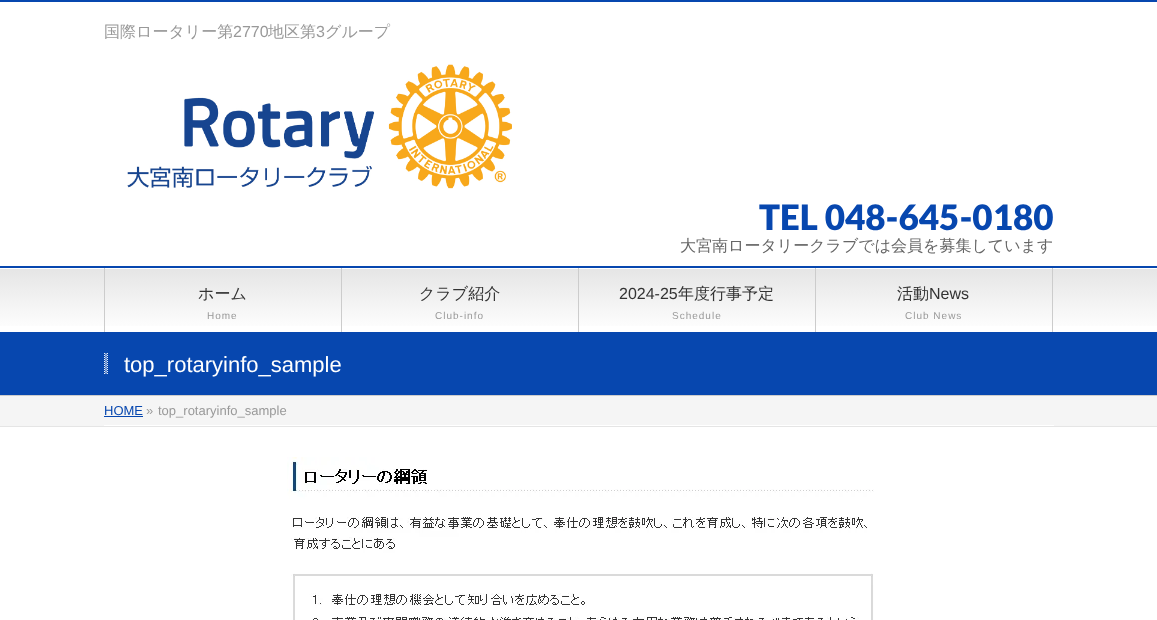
<!DOCTYPE html>
<meta charset="utf-8">
<style>body { margin: 0 } canvas { display: block }</style>
<canvas id="canvas" width="1157" height="620"></canvas>
<img id="img1" src="img_01.png" hidden>
<img id="img2" src="img_02.png" hidden>
<img id="img3" src="img_03.png" hidden>
<script>
window.onload = function () {
	const canvas = document.getElementById("canvas");
	const ctx = canvas.getContext("2d");
	ctx.miterLimit = 4;
	ctx.fontKerning = "normal";
	function txt(s, x, y) {
		ctx.fillText(s, x, y);
	}
	function fill(x, y, w, h) {
		ctx.fillRect(x, y, w, h);
	}
	function img(id, x, y, w, h) {
		ctx.drawImage(document.getElementById(id), x, y, w, h);
	}
	let gradient;

	ctx.fillStyle = "#FFFFFF";
	fill(0, 0, 1157, 620);
	ctx.fillStyle = "#0747AF";
	fill(0, 0, 1157, 2);
	img("img1", 127, 64, 385, 125);
	gradient = ctx.createLinearGradient(579, 268, 579, 332);
	gradient.addColorStop(0, "#E5E5E5");
	gradient.addColorStop(1, "#FFFFFF");
	ctx.fillStyle = gradient;
	fill(0, 269, 1157, 57);
	ctx.fillStyle = "#0747AF";
	fill(0, 266, 1157, 2);
	ctx.fillStyle = "#CCCCCC";
	fill(104, 268, 1, 64);
	fill(341, 268, 1, 64);
	fill(578, 268, 1, 64);
	fill(815, 268, 1, 64);
	fill(1052, 268, 1, 64);
	ctx.fillStyle = "#0747AF";
	fill(0, 332, 1157, 63);
	ctx.fillStyle = "#CCCCCC";
	fill(0, 395, 1157, 1);
	img("img2", 104, 353, 4, 21);
	ctx.fillStyle = "#F5F5F5";
	fill(0, 396, 1157, 30);
	ctx.fillStyle = "#E5E5E5";
	fill(0, 426, 1157, 1);
	ctx.fillStyle = "#FFFFFF";
	fill(104, 425, 950, 1);
	ctx.fillStyle = "#0747AF";
	fill(104, 416, 39, 1);
	img("img3", 287, 457, 587, 163);
	ctx.font = "500 16px WenQuanYi Zen Hei";
	ctx.fillStyle = "#999999";
	txt("国際ロータリー第", 104, 37);
	ctx.font = "16px Liberation Sans";
	txt("2770", 233, 37);
	ctx.font = "500 16px WenQuanYi Zen Hei";
	txt("地区第", 268, 37);
	ctx.font = "16px Liberation Sans";
	txt("3", 316, 37);
	ctx.font = "500 16px WenQuanYi Zen Hei";
	txt("グループ", 325, 37);
	ctx.font = "900 35px Lato";
	ctx.fillStyle = "#0747AF";
	txt("TEL 048-645-0180", 759, 230);
	ctx.font = "500 16px WenQuanYi Zen Hei";
	ctx.fillStyle = "#666666";
	txt("大宮南ロータリークラブでは会員を募集しています", 680, 251);
	ctx.fillStyle = "#333333";
	txt("ホーム", 198, 299);
	ctx.letterSpacing = "1px";
	ctx.font = "10px Liberation Sans";
	ctx.fillStyle = "#999999";
	txt("Home", 207, 319);
	ctx.letterSpacing = "0px";
	ctx.font = "500 16px WenQuanYi Zen Hei";
	ctx.fillStyle = "#333333";
	txt("クラブ紹介", 419, 299);
	ctx.letterSpacing = "1px";
	ctx.font = "10px Liberation Sans";
	ctx.fillStyle = "#999999";
	txt("Club-info", 435, 319);
	ctx.letterSpacing = "0px";
	ctx.font = "16px Liberation Sans";
	ctx.fillStyle = "#333333";
	txt("2024-25", 619, 299);
	ctx.font = "500 16px WenQuanYi Zen Hei";
	txt("年度行事予定", 678, 299);
	ctx.letterSpacing = "1px";
	ctx.font = "10px Liberation Sans";
	ctx.fillStyle = "#999999";
	txt("Schedule", 672, 319);
	ctx.letterSpacing = "0px";
	ctx.font = "500 16px WenQuanYi Zen Hei";
	ctx.fillStyle = "#333333";
	txt("活動", 897, 299);
	ctx.font = "16px Liberation Sans";
	txt("News", 929, 299);
	ctx.letterSpacing = "1px";
	ctx.font = "10px Liberation Sans";
	ctx.fillStyle = "#999999";
	txt("Club News", 905, 319);
	ctx.letterSpacing = "0px";
	ctx.font = "22px Liberation Sans";
	ctx.fillStyle = "#FFFFFF";
	txt("top_rotaryinfo_sample", 124, 372);
	ctx.font = "13px Liberation Sans";
	ctx.fillStyle = "#0747AF";
	txt("HOME", 104, 415);
	ctx.fillStyle = "#999999";
	txt("»", 146, 415);
	txt("top_rotaryinfo_sample", 158, 415);
};
</script>
